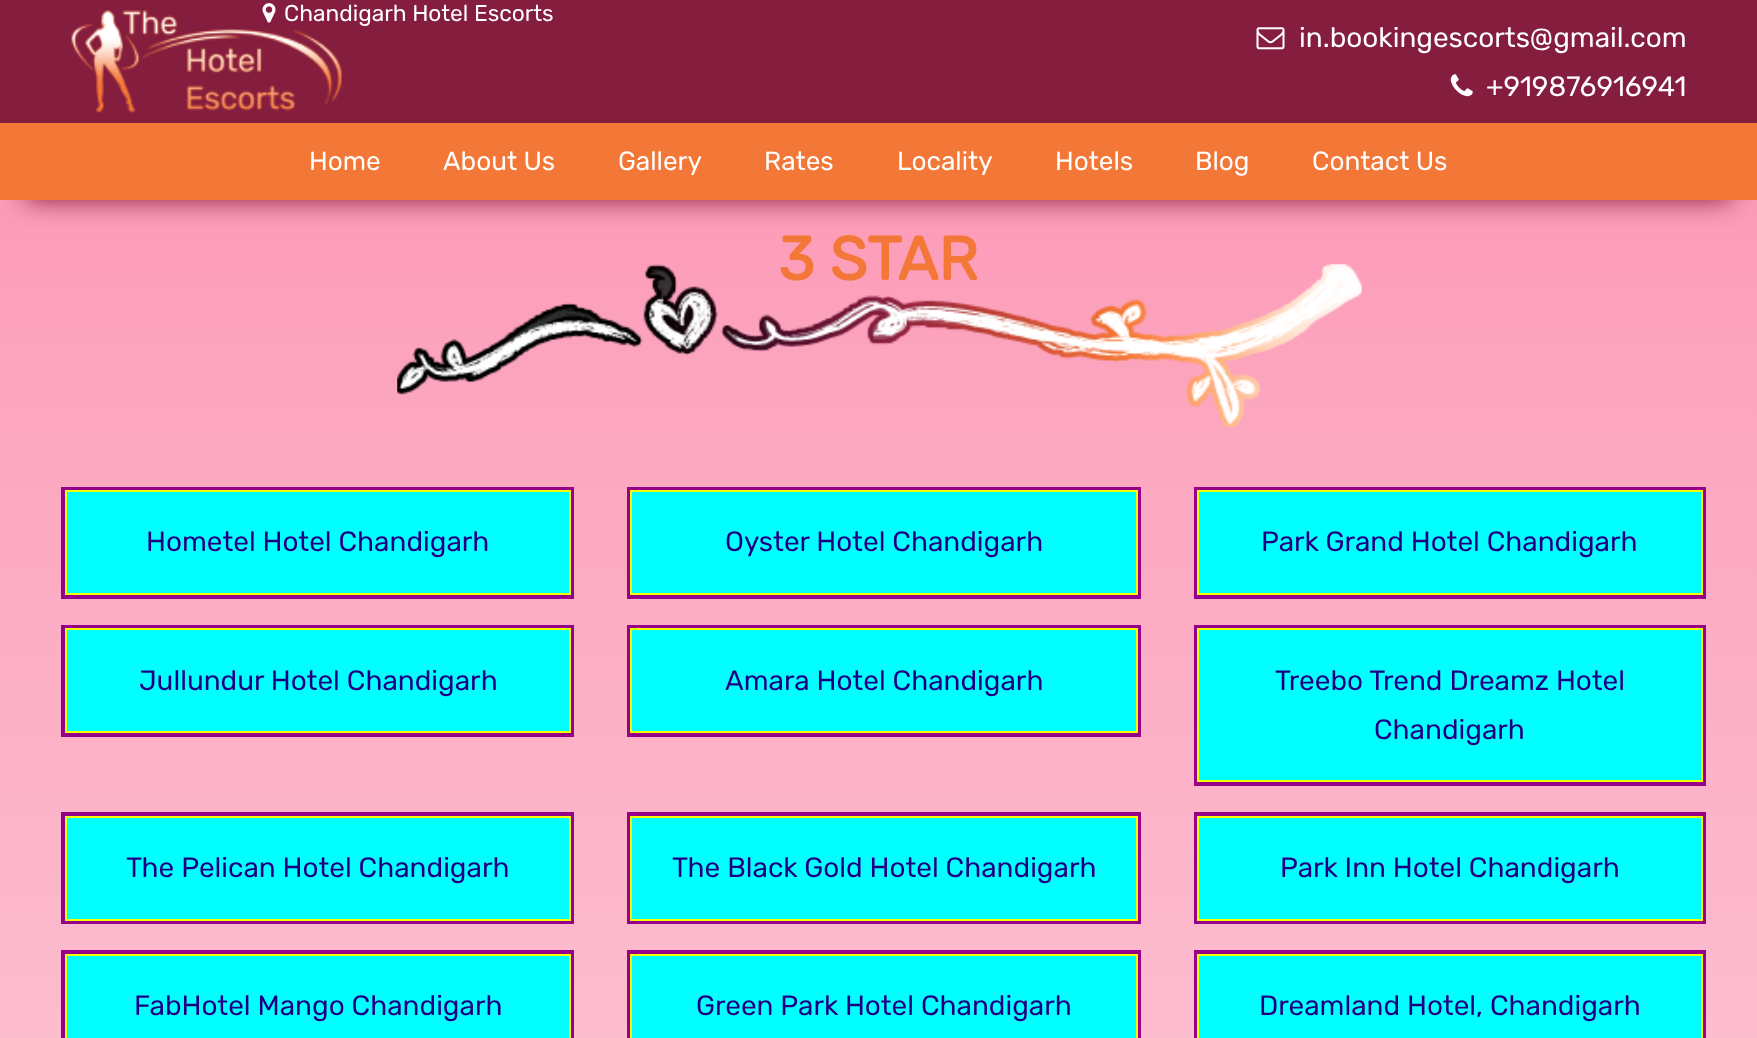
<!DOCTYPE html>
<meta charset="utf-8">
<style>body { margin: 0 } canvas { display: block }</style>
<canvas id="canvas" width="1757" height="1038"></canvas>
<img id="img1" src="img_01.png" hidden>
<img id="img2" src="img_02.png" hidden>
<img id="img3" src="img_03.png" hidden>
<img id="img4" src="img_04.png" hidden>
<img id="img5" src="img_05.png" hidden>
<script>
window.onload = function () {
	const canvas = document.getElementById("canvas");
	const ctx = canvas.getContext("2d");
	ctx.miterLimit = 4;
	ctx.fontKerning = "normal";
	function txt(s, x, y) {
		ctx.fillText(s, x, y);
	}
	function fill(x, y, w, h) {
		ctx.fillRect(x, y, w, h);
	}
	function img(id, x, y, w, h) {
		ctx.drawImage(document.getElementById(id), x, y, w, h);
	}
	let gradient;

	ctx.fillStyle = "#FFFFFF";
	fill(0, 0, 1757, 1038);
	gradient = ctx.createLinearGradient(879, 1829, 879, 0);
	gradient.addColorStop(0, "#FDD8E2");
	gradient.addColorStop(0.8, "#FCA4BE");
	gradient.addColorStop(1, "#FE90B1");
	ctx.fillStyle = gradient;
	fill(0, 200, 1757, 838);
	ctx.fillStyle = "#851E3E";
	ctx.filter = "blur(13px)";
	ctx.beginPath();
	ctx.rect(26, 53, 1705, 147);
	ctx.fill();
	ctx.filter = "none";
	fill(0, 0, 1757, 123);
	img("img1", 71, 10, 271, 103);
	img("img2", 262, 3, 14, 20);
	img("img3", 1256, 27, 29, 23);
	img("img4", 1450, 74, 23, 23);
	ctx.fillStyle = "#F37736";
	fill(0, 123, 1757, 77);
	img("img5", 397, 264, 965, 163);
	ctx.strokeStyle = "#950189";
	ctx.lineWidth = 4;
	ctx.strokeRect(63, 489, 509, 108);
	ctx.fillStyle = "#00FFFF";
	ctx.beginPath();
	ctx.rect(66, 491, 504, 103);
	ctx.fill();
	ctx.strokeStyle = "#F6FF00";
	ctx.lineWidth = 2;
	ctx.stroke();
	ctx.strokeStyle = "#950189";
	ctx.lineWidth = 4;
	ctx.strokeRect(629, 489, 510, 108);
	ctx.beginPath();
	ctx.rect(631, 491, 506, 103);
	ctx.fill();
	ctx.strokeStyle = "#F6FF00";
	ctx.lineWidth = 2;
	ctx.stroke();
	ctx.strokeStyle = "#950189";
	ctx.lineWidth = 4;
	ctx.strokeRect(1196, 489, 508, 108);
	ctx.beginPath();
	ctx.rect(1198, 491, 504, 103);
	ctx.fill();
	ctx.strokeStyle = "#F6FF00";
	ctx.lineWidth = 2;
	ctx.stroke();
	ctx.strokeStyle = "#950189";
	ctx.lineWidth = 4;
	ctx.strokeRect(63, 627, 509, 108);
	ctx.beginPath();
	ctx.rect(66, 629, 504, 103);
	ctx.fill();
	ctx.strokeStyle = "#F6FF00";
	ctx.lineWidth = 2;
	ctx.stroke();
	ctx.strokeStyle = "#950189";
	ctx.lineWidth = 4;
	ctx.strokeRect(629, 627, 510, 108);
	ctx.beginPath();
	ctx.rect(631, 629, 506, 103);
	ctx.fill();
	ctx.strokeStyle = "#F6FF00";
	ctx.lineWidth = 2;
	ctx.stroke();
	ctx.strokeStyle = "#950189";
	ctx.lineWidth = 4;
	ctx.strokeRect(1196, 627, 508, 157);
	ctx.beginPath();
	ctx.rect(1198, 629, 504, 152);
	ctx.fill();
	ctx.strokeStyle = "#F6FF00";
	ctx.lineWidth = 2;
	ctx.stroke();
	ctx.strokeStyle = "#950189";
	ctx.lineWidth = 4;
	ctx.strokeRect(63, 814, 509, 108);
	ctx.beginPath();
	ctx.rect(66, 817, 504, 103);
	ctx.fill();
	ctx.strokeStyle = "#F6FF00";
	ctx.lineWidth = 2;
	ctx.stroke();
	ctx.strokeStyle = "#950189";
	ctx.lineWidth = 4;
	ctx.strokeRect(629, 814, 510, 108);
	ctx.beginPath();
	ctx.rect(631, 817, 506, 103);
	ctx.fill();
	ctx.strokeStyle = "#F6FF00";
	ctx.lineWidth = 2;
	ctx.stroke();
	ctx.strokeStyle = "#950189";
	ctx.lineWidth = 4;
	ctx.strokeRect(1196, 814, 508, 108);
	ctx.beginPath();
	ctx.rect(1198, 817, 504, 103);
	ctx.fill();
	ctx.strokeStyle = "#F6FF00";
	ctx.lineWidth = 2;
	ctx.stroke();
	ctx.strokeStyle = "#950189";
	ctx.lineWidth = 4;
	ctx.strokeRect(63, 952, 509, 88);
	ctx.beginPath();
	ctx.rect(66, 955, 504, 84);
	ctx.fill();
	ctx.strokeStyle = "#F6FF00";
	ctx.lineWidth = 2;
	ctx.stroke();
	ctx.strokeStyle = "#950189";
	ctx.lineWidth = 4;
	ctx.strokeRect(629, 952, 510, 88);
	ctx.beginPath();
	ctx.rect(631, 955, 506, 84);
	ctx.fill();
	ctx.strokeStyle = "#F6FF00";
	ctx.lineWidth = 2;
	ctx.stroke();
	ctx.strokeStyle = "#950189";
	ctx.lineWidth = 4;
	ctx.strokeRect(1196, 952, 508, 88);
	ctx.beginPath();
	ctx.rect(1198, 955, 504, 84);
	ctx.fill();
	ctx.strokeStyle = "#F6FF00";
	ctx.lineWidth = 2;
	ctx.stroke();
	ctx.font = "22.75px Rubik";
	ctx.fillStyle = "#FFFFFF";
	txt("Chandigarh Hotel Escorts", 284, 21);
	ctx.font = "28px Rubik";
	txt("in.bookingescorts@gmail.com", 1299, 47);
	txt("+919876916941", 1486, 96);
	ctx.font = "26.25px Rubik";
	txt("Home", 309, 170);
	txt("About Us", 443, 170);
	txt("Gallery", 618, 170);
	txt("Rates", 764, 170);
	txt("Locality", 897, 170);
	txt("Hotels", 1055, 170);
	txt("Blog", 1195, 170);
	txt("Contact Us", 1312, 170);
	ctx.font = "bold 61px Rubik";
	ctx.fillStyle = "#F37736";
	txt("3 STAR", 778, 280);
	ctx.font = "28px Rubik";
	ctx.fillStyle = "#200082";
	txt("Hometel Hotel Chandigarh", 146, 551);
	txt("Oyster Hotel Chandigarh", 725, 551);
	txt("Park Grand Hotel Chandigarh", 1261, 551);
	txt("Jullundur Hotel Chandigarh", 139, 690);
	txt("Amara Hotel Chandigarh", 725, 690);
	txt("Treebo Trend Dreamz Hotel", 1275, 690);
	txt("Chandigarh", 1374, 739);
	txt("The Pelican Hotel Chandigarh", 126, 877);
	txt("The Black Gold Hotel Chandigarh", 672, 877);
	txt("Park Inn Hotel Chandigarh", 1280, 877);
	txt("FabHotel Mango Chandigarh", 134, 1015);
	txt("Green Park Hotel Chandigarh", 696, 1015);
	txt("Dreamland Hotel, Chandigarh", 1259, 1015);
};
</script>
